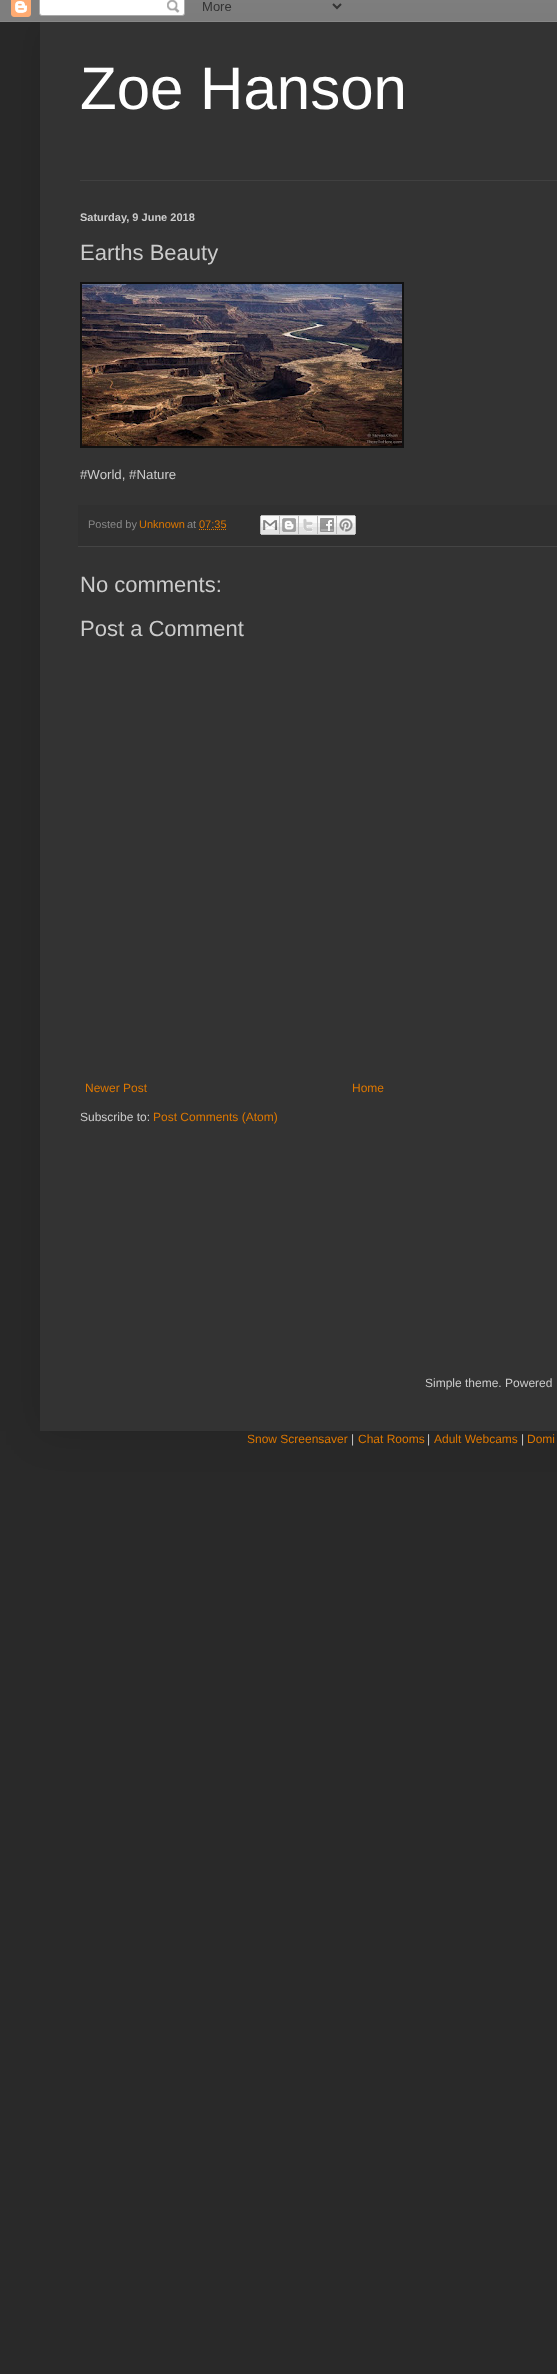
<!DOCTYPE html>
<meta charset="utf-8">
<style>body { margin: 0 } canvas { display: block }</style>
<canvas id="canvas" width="557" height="2374"></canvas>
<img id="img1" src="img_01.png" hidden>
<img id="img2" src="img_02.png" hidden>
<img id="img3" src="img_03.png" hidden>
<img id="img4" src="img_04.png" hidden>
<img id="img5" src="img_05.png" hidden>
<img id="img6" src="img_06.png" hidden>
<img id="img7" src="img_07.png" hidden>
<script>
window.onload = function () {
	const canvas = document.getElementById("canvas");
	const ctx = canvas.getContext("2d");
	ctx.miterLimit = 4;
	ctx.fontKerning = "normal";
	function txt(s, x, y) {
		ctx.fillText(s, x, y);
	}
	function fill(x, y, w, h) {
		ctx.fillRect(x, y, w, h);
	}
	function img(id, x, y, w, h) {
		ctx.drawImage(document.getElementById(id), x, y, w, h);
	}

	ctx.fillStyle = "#292929";
	fill(0, 0, 557, 2374);
	ctx.fillStyle = "rgba(0, 0, 0, 0.15)";
	ctx.filter = "blur(20px)";
	ctx.beginPath();
	ctx.rect(40, 22, 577, 1409);
	ctx.fill();
	ctx.filter = "none";
	img("img1", 0, 0, 557, 22);
	ctx.fillStyle = "#333333";
	fill(40, 22, 517, 1409);
	ctx.fillStyle = "#404040";
	fill(80, 180, 477, 1);
	ctx.fillStyle = "#111111";
	fill(80, 282, 324, 166);
	img("img2", 82, 284, 320, 162);
	ctx.fillStyle = "#303030";
	fill(78, 505, 479, 41);
	ctx.fillStyle = "#444444";
	fill(78, 546, 479, 1);
	ctx.beginPath();
	ctx.moveTo(199, 529.5);
	ctx.lineTo(226, 529.5);
	ctx.strokeStyle = "#DD7700";
	ctx.setLineDash([1, 1]);
	ctx.stroke();
	img("img3", 260, 515, 20, 20);
	img("img4", 280, 515, 19, 20);
	img("img5", 299, 515, 19, 20);
	img("img6", 318, 515, 19, 20);
	img("img7", 337, 515, 19, 20);
	ctx.font = "60px Liberation Sans";
	ctx.fillStyle = "#FFFFFF";
	txt("Zoe Hanson", 80, 109);
	ctx.font = "bold 11px Liberation Sans";
	ctx.fillStyle = "#CCCCCC";
	txt("Saturday, 9 June 2018", 80, 221);
	ctx.font = "22px Liberation Sans";
	txt("Earths Beauty", 80, 260);
	ctx.font = "13.25px Liberation Sans";
	txt("#World, #Nature", 80, 479);
	ctx.font = "11px Liberation Sans";
	ctx.fillStyle = "#888888";
	txt("Posted by", 88, 528);
	ctx.fillStyle = "#DD7700";
	txt("Unknown", 139, 528);
	ctx.fillStyle = "#888888";
	txt("at", 187, 528);
	ctx.fillStyle = "#DD7700";
	txt("07:35", 199, 528);
	ctx.font = "22px Liberation Sans";
	ctx.fillStyle = "#CCCCCC";
	txt("No comments:", 80, 592);
	txt("Post a Comment", 80, 636);
	ctx.font = "12px Liberation Sans";
	ctx.fillStyle = "#DD7700";
	txt("Newer Post", 85, 1092);
	txt("Home", 352, 1092);
	ctx.fillStyle = "#CCCCCC";
	txt("Subscribe to:", 80, 1121);
	ctx.fillStyle = "#DD7700";
	txt("Post Comments (Atom)", 153, 1121);
	ctx.fillStyle = "#CCCCCC";
	txt("Simple theme. Powered", 425, 1387);
	ctx.fillStyle = "#DD7700";
	txt("Snow Screensaver", 247, 1443);
	ctx.fillStyle = "#CCCCCC";
	txt("|", 351, 1443);
	ctx.fillStyle = "#DD7700";
	txt("Chat Rooms", 358, 1443);
	ctx.fillStyle = "#CCCCCC";
	txt("|", 427, 1443);
	ctx.fillStyle = "#DD7700";
	txt("Adult Webcams", 434, 1443);
	ctx.fillStyle = "#CCCCCC";
	txt("|", 521, 1443);
	ctx.fillStyle = "#DD7700";
	txt("Domi", 527, 1443);
};
</script>
